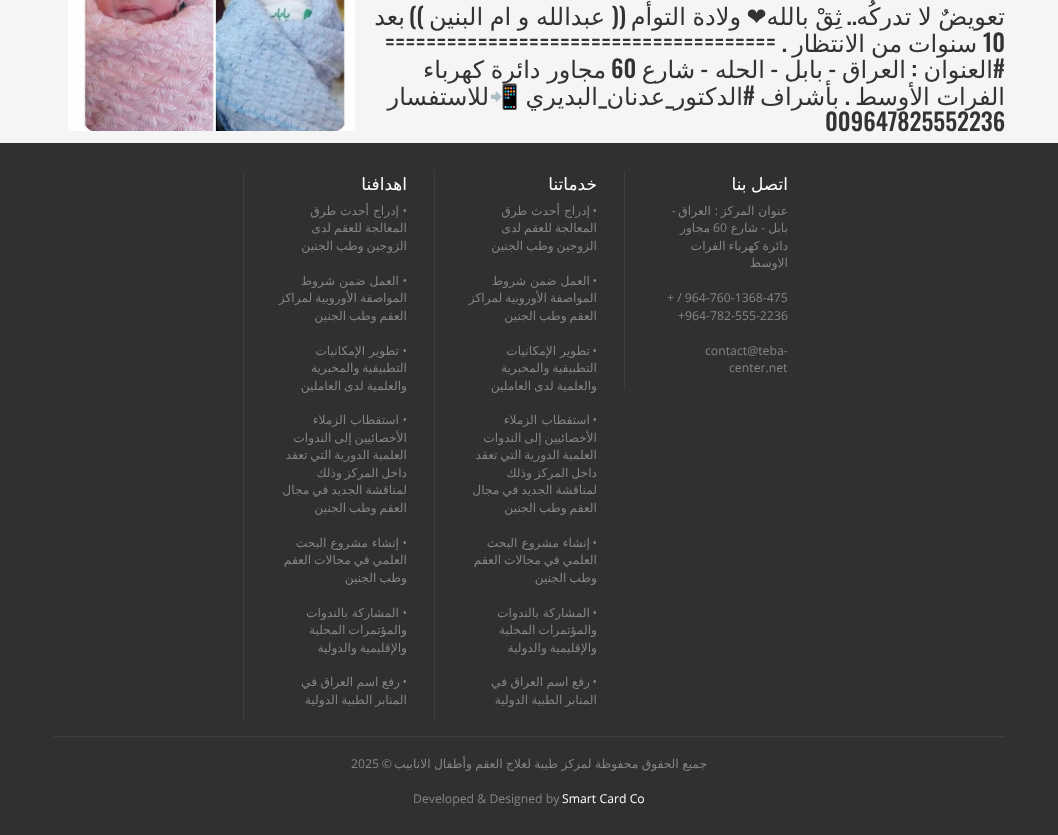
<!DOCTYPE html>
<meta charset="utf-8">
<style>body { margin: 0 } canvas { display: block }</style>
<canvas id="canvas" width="1058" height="835"></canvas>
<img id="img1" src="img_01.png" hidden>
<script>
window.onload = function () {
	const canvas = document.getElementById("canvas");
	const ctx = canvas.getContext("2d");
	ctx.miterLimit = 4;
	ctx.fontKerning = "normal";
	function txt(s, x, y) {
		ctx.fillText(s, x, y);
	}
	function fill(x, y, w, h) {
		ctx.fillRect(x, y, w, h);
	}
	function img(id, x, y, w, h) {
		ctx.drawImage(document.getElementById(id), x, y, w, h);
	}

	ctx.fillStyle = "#F5F5F5";
	fill(0, 0, 1058, 835);
	img("img1", 68, 0, 287, 131);
	ctx.fillStyle = "#303030";
	fill(0, 143, 1058, 692);
	ctx.fillStyle = "#3E3E3E";
	fill(624, 171, 1, 219);
	fill(434, 171, 1, 551);
	fill(243, 171, 1, 551);
	fill(53, 736, 952, 1);
	ctx.wordSpacing = "-1px";
	ctx.direction = "rtl";
	ctx.font = "24px DejaVu Sans";
	ctx.fillStyle = "#333333";
	txt("تعويضٌ لا تدركُه", 1005, 25);
	ctx.wordSpacing = "0px";
	ctx.font = "500 24px Oswald";
	txt("..", 857, 25);
	ctx.wordSpacing = "-1px";
	ctx.font = "24px DejaVu Sans";
	txt("ثِقْ بالله❤", 842, 25);
	txt("ولادة التوأم", 741, 25);
	ctx.wordSpacing = "0px";
	ctx.font = "500 24px Oswald";
	txt("((", 626, 25);
	ctx.wordSpacing = "-1px";
	ctx.font = "24px DejaVu Sans";
	txt("عبدالله و ام البنين", 605, 25);
	ctx.wordSpacing = "0px";
	ctx.font = "500 24px Oswald";
	txt("))", 424, 25);
	ctx.font = "24px DejaVu Sans";
	txt("بعد", 405, 25);
	ctx.direction = "ltr";
	ctx.font = "500 24px Oswald";
	txt("10", 983, 52);
	ctx.direction = "rtl";
	ctx.font = "24px DejaVu Sans";
	txt("سنوات", 977, 52);
	txt("من", 902, 52);
	txt("الانتظار", 865, 52);
	ctx.font = "500 24px Oswald";
	txt(". ======================================", 787, 52);
	txt("#", 1005, 78);
	ctx.font = "24px DejaVu Sans";
	txt("العنوان", 993, 78);
	ctx.font = "500 24px Oswald";
	txt(":", 917, 78);
	ctx.font = "24px DejaVu Sans";
	txt("العراق", 906, 78);
	ctx.font = "500 24px Oswald";
	txt("-", 836, 78);
	ctx.font = "24px DejaVu Sans";
	txt("بابل", 823, 78);
	ctx.font = "500 24px Oswald";
	txt("-", 778, 78);
	ctx.font = "24px DejaVu Sans";
	txt("الحله", 765, 78);
	ctx.font = "500 24px Oswald";
	txt("-", 708, 78);
	ctx.font = "24px DejaVu Sans";
	txt("شارع", 695, 78);
	ctx.direction = "ltr";
	ctx.font = "500 24px Oswald";
	txt("60", 611, 78);
	ctx.wordSpacing = "-1px";
	ctx.direction = "rtl";
	ctx.font = "24px DejaVu Sans";
	txt("مجاور دائرة كهرباء", 606, 78);
	txt("الفرات الأوسط", 1005, 105);
	ctx.wordSpacing = "0px";
	ctx.font = "500 24px Oswald";
	txt(".", 850, 105);
	ctx.font = "24px DejaVu Sans";
	txt("بأشراف", 839, 105);
	ctx.font = "500 24px Oswald";
	txt("#", 755, 105);
	ctx.font = "24px DejaVu Sans";
	txt("عدنان", 665, 105);
	txt("البديري", 598, 105);
	ctx.font = "24px Noto Color Emoji";
	txt("📲", 519, 105);
	ctx.font = "24px DejaVu Sans";
	txt("للاستفسار", 489, 105);
	ctx.font = "500 24px Oswald";
	txt("_", 674, 105);
	ctx.font = "24px DejaVu Sans";
	txt("الدكتور", 743, 105);
	ctx.font = "500 24px Oswald";
	txt("_", 607, 105);
	ctx.direction = "ltr";
	txt("009647825552236", 825, 131);
	ctx.wordSpacing = "-1px";
	ctx.direction = "rtl";
	ctx.font = "17px DejaVu Sans";
	ctx.fillStyle = "#FFFFFF";
	txt("اتصل بنا", 788, 190);
	ctx.wordSpacing = "0px";
	ctx.font = "12.25px DejaVu Sans";
	ctx.fillStyle = "#858484";
	txt("عنوان المركز", 788, 215);
	ctx.font = "12.25px Open Sans";
	txt(":", 718, 215);
	ctx.font = "12.25px DejaVu Sans";
	txt("العراق", 711, 215);
	ctx.font = "12.25px Open Sans";
	txt("-", 676, 215);
	ctx.font = "12.25px DejaVu Sans";
	txt("بابل", 788, 232);
	ctx.font = "12.25px Open Sans";
	txt("-", 765, 232);
	ctx.font = "12.25px DejaVu Sans";
	txt("شارع", 758, 232);
	ctx.direction = "ltr";
	ctx.font = "12.25px Open Sans";
	txt("60", 713, 232);
	ctx.direction = "rtl";
	ctx.font = "12.25px DejaVu Sans";
	txt("مجاور", 710, 232);
	ctx.wordSpacing = "-1px";
	txt("دائرة كهرباء الفرات", 788, 250);
	ctx.wordSpacing = "0px";
	txt("الاوسط", 788, 267);
	ctx.direction = "ltr";
	ctx.font = "12.25px Open Sans";
	txt("+ / 964-760-1368-475", 667, 302);
	txt("+964-782-555-2236", 678, 320);
	txt("contact@teba-", 705, 355);
	txt("center.net", 729, 372);
	ctx.direction = "rtl";
	ctx.font = "17px DejaVu Sans";
	ctx.fillStyle = "#FFFFFF";
	txt("خدماتنا", 597, 190);
	ctx.font = "12.25px Open Sans";
	ctx.fillStyle = "#858484";
	txt("•", 597, 215);
	ctx.font = "12.25px DejaVu Sans";
	txt("إدراج أحدث طرق", 590, 215);
	ctx.wordSpacing = "-1px";
	txt("المعالجة للعقم لدى", 597, 232);
	txt("الزوجين وطب الجنين", 597, 250);
	ctx.wordSpacing = "0px";
	ctx.font = "12.25px Open Sans";
	txt("•", 597, 285);
	ctx.font = "12.25px DejaVu Sans";
	txt("العمل ضمن شروط", 590, 285);
	ctx.wordSpacing = "-1px";
	txt("المواصفة الأوروبية لمراكز", 597, 302);
	txt("العقم وطب الجنين", 597, 320);
	ctx.wordSpacing = "0px";
	ctx.font = "12.25px Open Sans";
	txt("•", 597, 355);
	ctx.font = "12.25px DejaVu Sans";
	txt("تطوير الإمكانيات", 590, 355);
	ctx.wordSpacing = "-1px";
	txt("التطبيقية والمخبرية", 597, 372);
	txt("والعلمية لدى العاملين", 597, 390);
	ctx.wordSpacing = "0px";
	ctx.font = "12.25px Open Sans";
	txt("•", 597, 424);
	ctx.font = "12.25px DejaVu Sans";
	txt("استقطاب الزملاء", 590, 424);
	ctx.wordSpacing = "-1px";
	txt("الأخصائيين إلى الندوات", 597, 442);
	txt("العلمية الدورية التي تعقد", 597, 459);
	txt("داخل المركز وذلك", 597, 477);
	txt("لمناقشة الجديد في مجال", 597, 494);
	txt("العقم وطب الجنين", 597, 512);
	ctx.wordSpacing = "0px";
	ctx.font = "12.25px Open Sans";
	txt("•", 597, 547);
	ctx.font = "12.25px DejaVu Sans";
	txt("إنشاء مشروع البحث", 590, 547);
	ctx.wordSpacing = "-1px";
	txt("العلمي في مجالات العقم", 597, 564);
	txt("وطب الجنين", 597, 582);
	ctx.wordSpacing = "0px";
	ctx.font = "12.25px Open Sans";
	txt("•", 597, 617);
	ctx.font = "12.25px DejaVu Sans";
	txt("المشاركة بالندوات", 590, 617);
	ctx.wordSpacing = "-1px";
	txt("والمؤتمرات المحلية", 597, 634);
	txt("والإقليمية والدولية", 597, 652);
	ctx.wordSpacing = "0px";
	ctx.font = "12.25px Open Sans";
	txt("•", 597, 686);
	ctx.wordSpacing = "-0.5px";
	ctx.font = "12.25px DejaVu Sans";
	txt("رفع اسم العراق في", 590, 686);
	ctx.wordSpacing = "-1px";
	txt("المنابر الطبية الدولية", 597, 704);
	ctx.wordSpacing = "0px";
	ctx.font = "17px DejaVu Sans";
	ctx.fillStyle = "#FFFFFF";
	txt("اهدافنا", 407, 190);
	ctx.font = "12.25px Open Sans";
	ctx.fillStyle = "#858484";
	txt("•", 407, 215);
	ctx.font = "12.25px DejaVu Sans";
	txt("إدراج أحدث طرق", 399, 215);
	ctx.wordSpacing = "-1px";
	txt("المعالجة للعقم لدى", 407, 232);
	txt("الزوجين وطب الجنين", 407, 250);
	ctx.wordSpacing = "0px";
	ctx.font = "12.25px Open Sans";
	txt("•", 407, 285);
	ctx.font = "12.25px DejaVu Sans";
	txt("العمل ضمن شروط", 399, 285);
	ctx.wordSpacing = "-1px";
	txt("المواصفة الأوروبية لمراكز", 407, 302);
	txt("العقم وطب الجنين", 407, 320);
	ctx.wordSpacing = "0px";
	ctx.font = "12.25px Open Sans";
	txt("•", 407, 355);
	ctx.font = "12.25px DejaVu Sans";
	txt("تطوير الإمكانيات", 399, 355);
	ctx.wordSpacing = "-1px";
	txt("التطبيقية والمخبرية", 407, 372);
	txt("والعلمية لدى العاملين", 407, 390);
	ctx.wordSpacing = "0px";
	ctx.font = "12.25px Open Sans";
	txt("•", 407, 424);
	ctx.font = "12.25px DejaVu Sans";
	txt("استقطاب الزملاء", 399, 424);
	ctx.wordSpacing = "-1px";
	txt("الأخصائيين إلى الندوات", 407, 442);
	txt("العلمية الدورية التي تعقد", 407, 459);
	txt("داخل المركز وذلك", 407, 477);
	txt("لمناقشة الجديد في مجال", 407, 494);
	txt("العقم وطب الجنين", 407, 512);
	ctx.wordSpacing = "0px";
	ctx.font = "12.25px Open Sans";
	txt("•", 407, 547);
	ctx.font = "12.25px DejaVu Sans";
	txt("إنشاء مشروع البحث", 399, 547);
	ctx.wordSpacing = "-1px";
	txt("العلمي في مجالات العقم", 407, 564);
	txt("وطب الجنين", 407, 582);
	ctx.wordSpacing = "0px";
	ctx.font = "12.25px Open Sans";
	txt("•", 407, 617);
	ctx.font = "12.25px DejaVu Sans";
	txt("المشاركة بالندوات", 399, 617);
	ctx.wordSpacing = "-1px";
	txt("والمؤتمرات المحلية", 407, 634);
	txt("والإقليمية والدولية", 407, 652);
	ctx.wordSpacing = "0px";
	ctx.font = "12.25px Open Sans";
	txt("•", 407, 686);
	ctx.wordSpacing = "-0.5px";
	ctx.font = "12.25px DejaVu Sans";
	txt("رفع اسم العراق في", 400, 686);
	ctx.wordSpacing = "-1px";
	txt("المنابر الطبية الدولية", 407, 704);
	ctx.wordSpacing = "-0.5px";
	txt("جميع الحقوق محفوظة لمركز طيبة لعلاج العقم وأطفال الانابيب", 707, 768);
	ctx.wordSpacing = "0px";
	ctx.font = "12.25px Open Sans";
	txt("©", 392, 768);
	ctx.direction = "ltr";
	txt("2025", 351, 768);
	ctx.fillStyle = "#FFFFFF";
	txt("Smart Card Co", 562, 803);
	ctx.fillStyle = "#858484";
	txt("Developed & Designed by", 413, 803);
};
</script>
